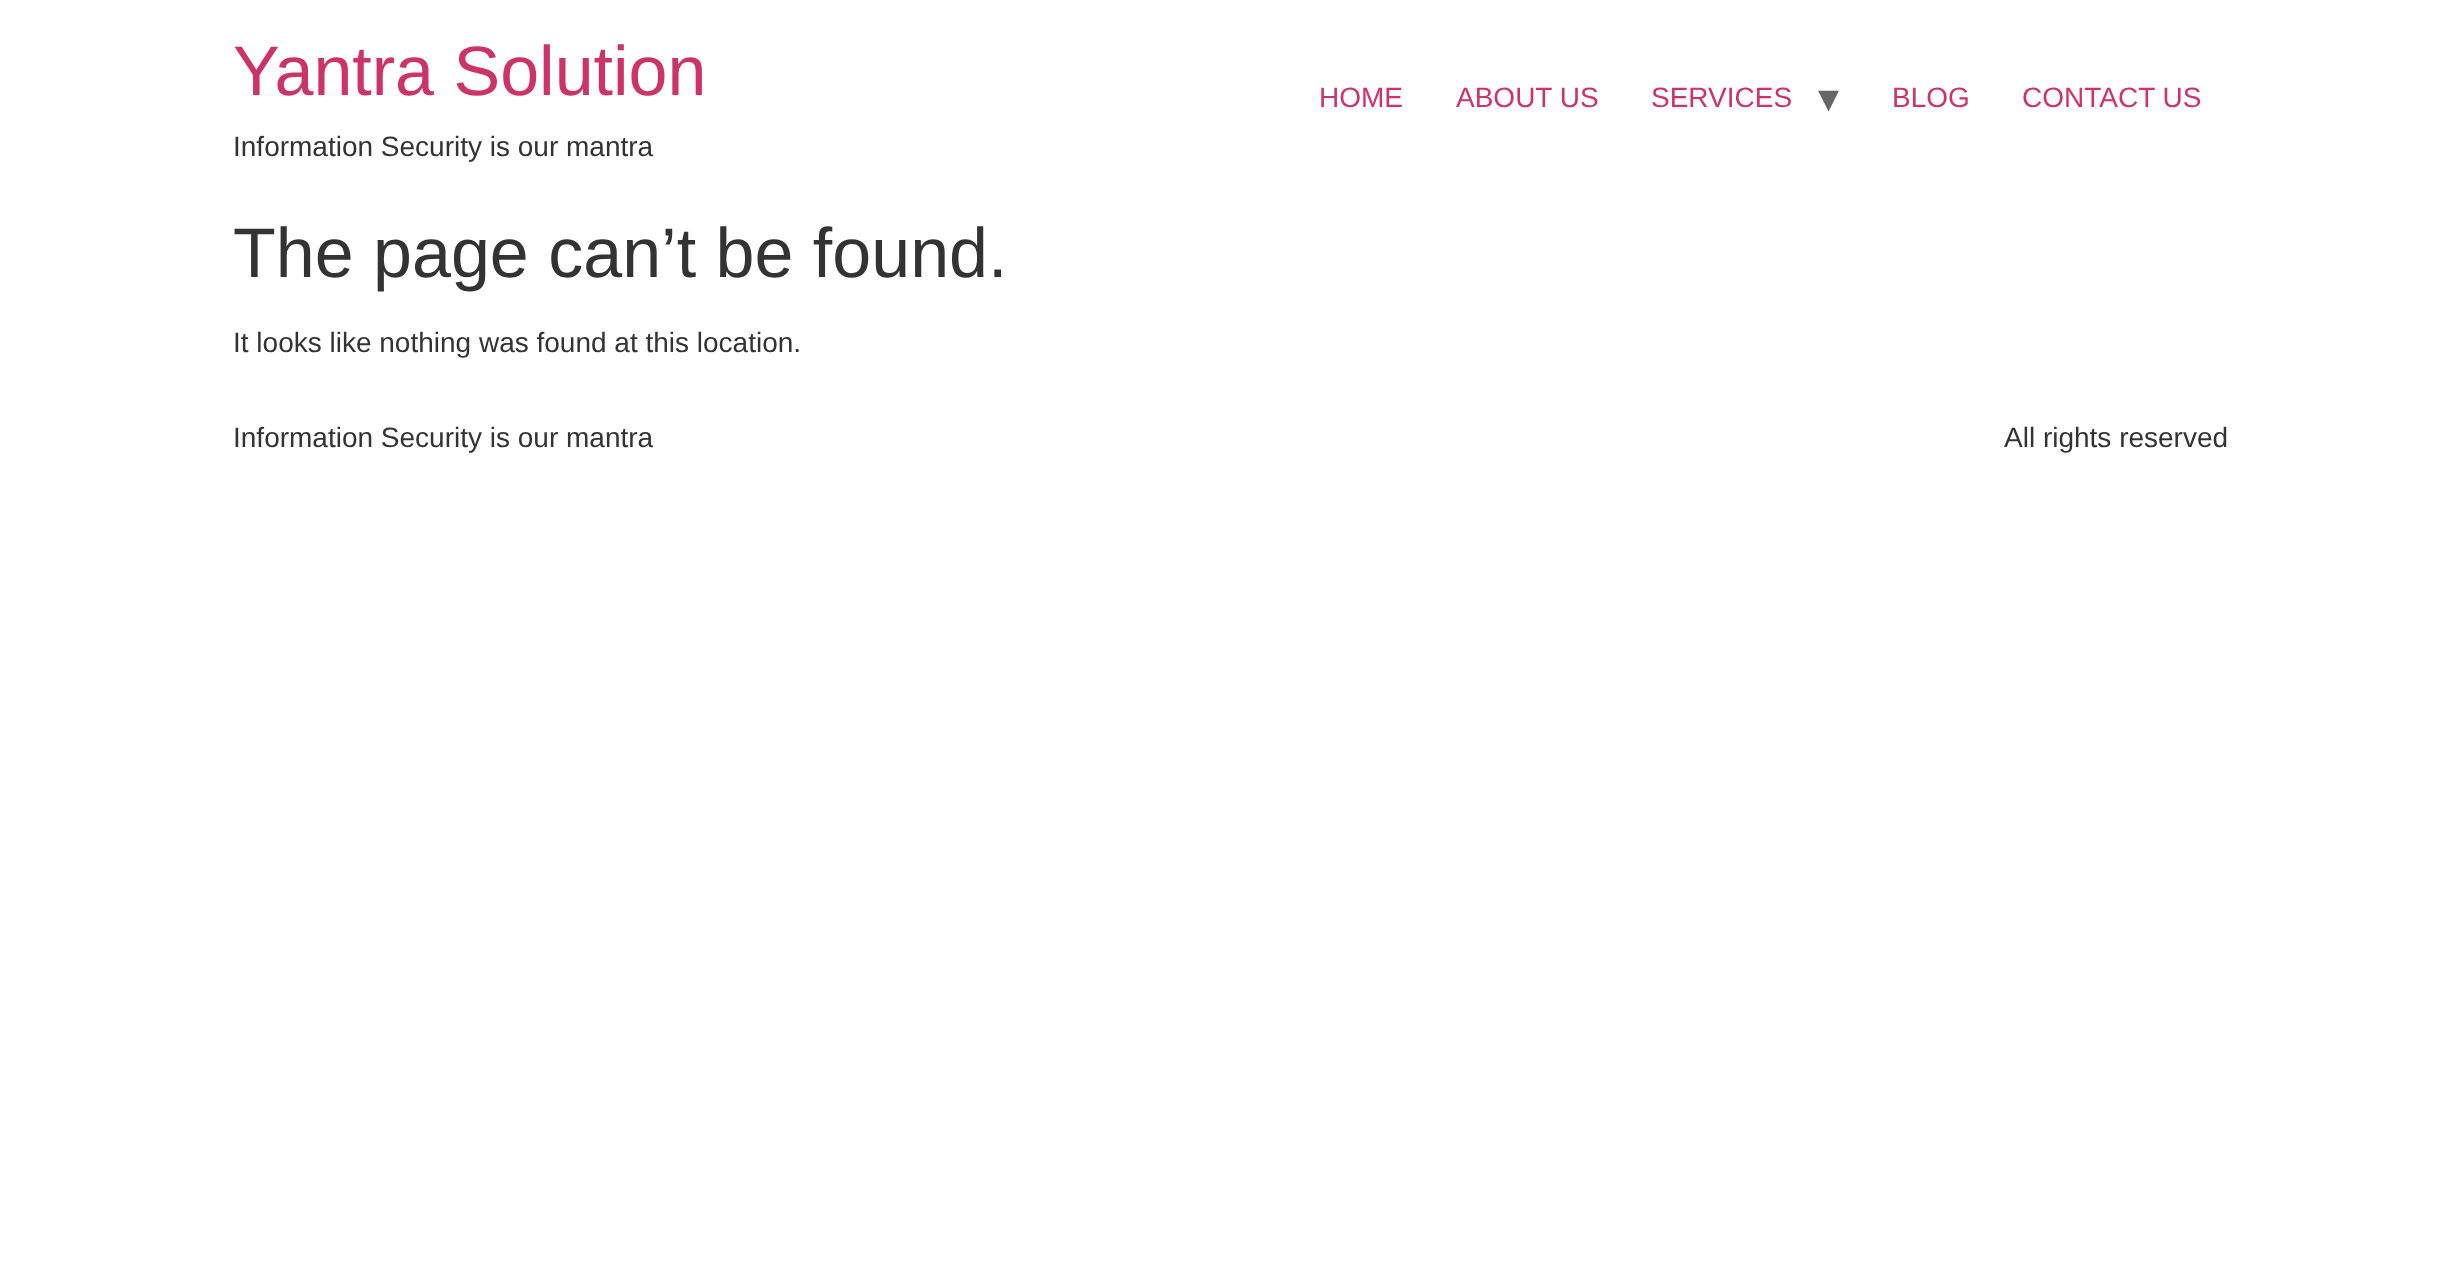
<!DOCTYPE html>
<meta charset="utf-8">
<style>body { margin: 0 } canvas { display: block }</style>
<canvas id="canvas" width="2460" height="1264"></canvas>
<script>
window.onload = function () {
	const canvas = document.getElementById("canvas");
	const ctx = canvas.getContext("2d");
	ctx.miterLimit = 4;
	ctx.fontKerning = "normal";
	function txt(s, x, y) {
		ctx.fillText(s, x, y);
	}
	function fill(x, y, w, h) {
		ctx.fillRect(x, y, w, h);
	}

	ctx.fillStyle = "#FFFFFF";
	fill(0, 0, 2460, 1264);
	ctx.font = "70px Liberation Sans";
	ctx.fillStyle = "#CC3366";
	txt("Yantra Solution", 233, 95);
	ctx.font = "28px Liberation Sans";
	ctx.fillStyle = "#333333";
	txt("Information Security is our mantra", 233, 156);
	ctx.fillStyle = "#CC3366";
	txt("HOME", 1319, 107);
	txt("ABOUT US", 1456, 107);
	txt("SERVICES", 1651, 107);
	ctx.font = "42px DejaVu Sans";
	ctx.fillStyle = "#666666";
	txt("▾", 1818, 112);
	ctx.font = "28px Liberation Sans";
	ctx.fillStyle = "#CC3366";
	txt("BLOG", 1892, 107);
	txt("CONTACT US", 2022, 107);
	ctx.font = "70px Liberation Sans";
	ctx.fillStyle = "#333333";
	txt("The page can’t be found.", 233, 277);
	ctx.font = "28px Liberation Sans";
	txt("It looks like nothing was found at this location.", 233, 352);
	txt("Information Security is our mantra", 233, 447);
	txt("All rights reserved", 2004, 447);
};
</script>
